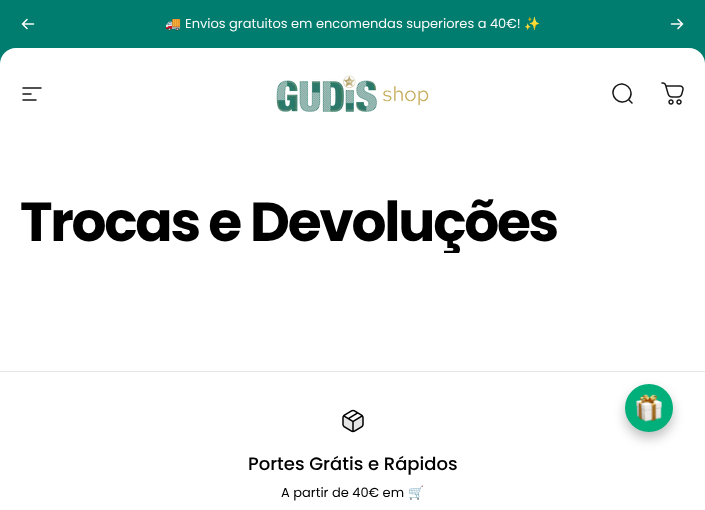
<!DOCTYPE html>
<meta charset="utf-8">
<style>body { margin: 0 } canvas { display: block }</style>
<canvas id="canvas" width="705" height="510"></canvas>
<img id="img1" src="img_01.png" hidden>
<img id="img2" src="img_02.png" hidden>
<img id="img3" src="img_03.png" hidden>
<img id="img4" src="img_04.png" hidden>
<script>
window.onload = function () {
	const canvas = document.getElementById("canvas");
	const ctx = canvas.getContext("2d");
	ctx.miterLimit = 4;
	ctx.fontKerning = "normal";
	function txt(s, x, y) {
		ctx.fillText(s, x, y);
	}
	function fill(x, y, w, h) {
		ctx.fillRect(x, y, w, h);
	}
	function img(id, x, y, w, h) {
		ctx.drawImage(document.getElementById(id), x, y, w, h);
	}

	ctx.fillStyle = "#FFFFFF";
	fill(0, 0, 705, 510);
	ctx.fillStyle = "#007D6E";
	fill(0, 0, 705, 16);
	ctx.beginPath();
	ctx.roundRect(0, 0, 705, 64, [16, 16, 0, 0]);
	ctx.fill();
	ctx.beginPath();
	ctx.moveTo(27, 19.5);
	ctx.lineTo(22.5, 24);
	ctx.moveTo(22.5, 24);
	ctx.lineTo(27, 28.5);
	ctx.moveTo(22.5, 24);
	ctx.lineTo(33.5, 24);
	ctx.strokeStyle = "#FAFAFA";
	ctx.lineWidth = 1.6;
	ctx.lineCap = "round";
	ctx.lineJoin = "round";
	ctx.stroke();
	ctx.beginPath();
	ctx.moveTo(671.5, 24);
	ctx.lineTo(682.5, 24);
	ctx.moveTo(682.5, 24);
	ctx.lineTo(678, 19.5);
	ctx.moveTo(682.5, 24);
	ctx.lineTo(678, 28.5);
	ctx.stroke();
	ctx.fillStyle = "#FFFFFF";
	ctx.beginPath();
	ctx.roundRect(0, 48, 705, 92, [16, 16, 0, 0]);
	ctx.fill();
	ctx.beginPath();
	ctx.moveTo(23, 88);
	ctx.lineTo(41, 88);
	ctx.moveTo(23, 94);
	ctx.lineTo(31, 94);
	ctx.moveTo(23, 100);
	ctx.lineTo(36, 100);
	ctx.strokeStyle = "#171717";
	ctx.lineWidth = 1.5;
	ctx.lineJoin = "miter";
	ctx.stroke();
	img("img1", 276, 75, 153, 37);
	ctx.beginPath();
	ctx.moveTo(632, 103);
	ctx.lineTo(628.5, 99.5);
	ctx.moveTo(628.5, 99.5);
	ctx.bezierCurveTo(636.5, 91, 624, 78.5, 615.5, 86.5);
	ctx.bezierCurveTo(607.5, 95, 620, 107.5, 628.5, 99.5);
	ctx.closePath();
	ctx.stroke();
	img("img2", 661, 82, 23, 23);
	ctx.fillStyle = "#E6E6E6";
	fill(0, 371, 705, 1);
	img("img3", 342, 409, 22, 24);
	ctx.fillStyle = "rgba(0, 0, 0, 0.25)";
	ctx.filter = "blur(6px)";
	ctx.beginPath();
	ctx.roundRect(625, 390, 48, 48, 24);
	ctx.fill();
	ctx.filter = "none";
	ctx.fillStyle = "#00AF79";
	ctx.beginPath();
	ctx.arc(649, 408, 24, 0, Math.PI * 2);
	ctx.fill();
	img("img4", 636, 394, 26, 28);
	ctx.font = "13px Noto Color Emoji";
	ctx.fillStyle = "#FAFAFA";
	txt("🚚", 165, 28);
	ctx.font = "13px Poppins";
	txt("Envios gratuitos em encomendas superiores a 40€!", 185, 28);
	ctx.font = "13px Noto Color Emoji";
	txt("✨", 524, 28);
	ctx.letterSpacing = "-2.25px";
	ctx.font = "bold 55px Poppins";
	ctx.fillStyle = "#000000";
	txt("Trocas e", 20, 241);
	ctx.save();
	ctx.beginPath();
	ctx.rect(247, 190, 314, 63);
	ctx.clip();
	txt("Devoluções", 250, 241);
	ctx.restore();
	ctx.letterSpacing = "0px";
	ctx.font = "500 18px Poppins";
	txt("Portes Grátis e Rápidos", 248, 470);
	ctx.font = "13px Poppins";
	txt("A partir de 40€ em", 281, 497);
	ctx.font = "13px Noto Color Emoji";
	txt("🛒", 408, 497);
};
</script>
